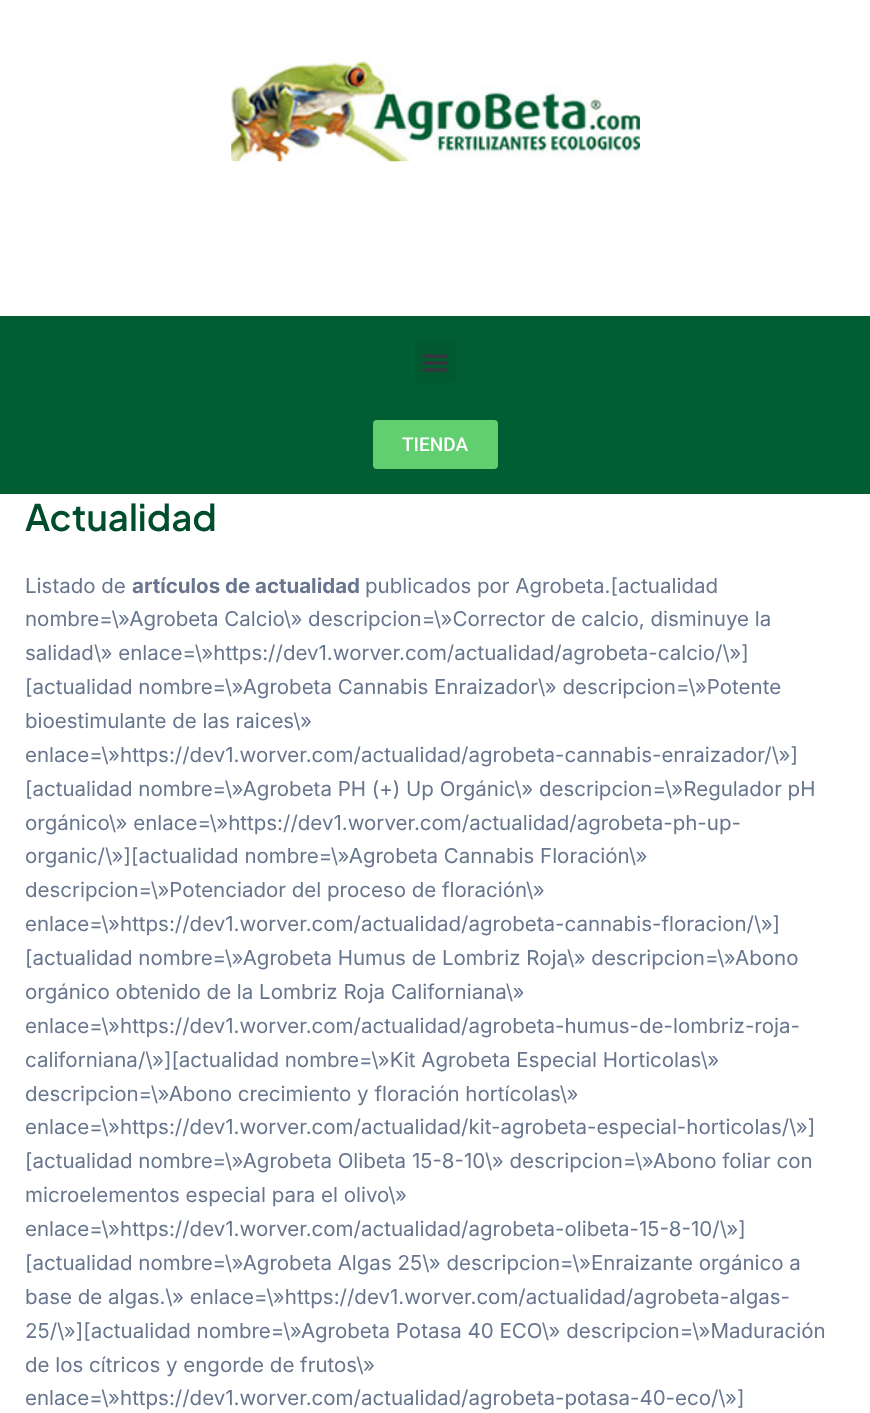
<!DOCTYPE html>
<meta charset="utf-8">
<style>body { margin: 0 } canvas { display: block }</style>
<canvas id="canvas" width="870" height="1413"></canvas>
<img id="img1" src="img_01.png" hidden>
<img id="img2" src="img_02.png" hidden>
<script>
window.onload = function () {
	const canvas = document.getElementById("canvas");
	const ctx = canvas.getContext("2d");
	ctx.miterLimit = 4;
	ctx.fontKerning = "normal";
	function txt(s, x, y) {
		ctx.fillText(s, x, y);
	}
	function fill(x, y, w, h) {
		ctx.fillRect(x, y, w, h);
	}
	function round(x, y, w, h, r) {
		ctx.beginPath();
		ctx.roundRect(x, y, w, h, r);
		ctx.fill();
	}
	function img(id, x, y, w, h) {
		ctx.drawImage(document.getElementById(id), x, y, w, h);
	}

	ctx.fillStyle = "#FFFFFF";
	fill(0, 0, 870, 1413);
	img("img1", 231, 55, 409, 107);
	ctx.fillStyle = "#015E32";
	fill(0, 316, 870, 178);
	ctx.fillStyle = "#015930";
	round(415, 341, 41, 42, 4);
	img("img2", 422, 354, 26, 18);
	ctx.fillStyle = "#61CE70";
	round(373, 420, 125, 49, 4);
	ctx.font = "500 19px Roboto";
	ctx.fillStyle = "#FFFFFF";
	txt("TIENDA", 402, 451);
	ctx.font = "600 36.5px Plus Jakarta Sans";
	ctx.fillStyle = "#004D2D";
	txt("Actualidad", 25, 531);
	ctx.font = "20.5px Inter";
	ctx.fillStyle = "#67768E";
	txt("Listado de", 25, 593);
	ctx.font = "bold 20.5px Inter";
	txt("artículos de actualidad", 132, 593);
	ctx.font = "20.5px Inter";
	txt("publicados por Agrobeta.[actualidad", 365, 593);
	txt("nombre=\\»Agrobeta Calcio\\» descripcion=\\»Corrector de calcio, disminuye la", 25, 626);
	txt("salidad\\» enlace=\\»https://dev1.worver.com/actualidad/agrobeta-calcio/\\»]", 25, 660);
	txt("[actualidad nombre=\\»Agrobeta Cannabis Enraizador\\» descripcion=\\»Potente", 25, 694);
	txt("bioestimulante de las raices\\»", 25, 728);
	txt("enlace=\\»https://dev1.worver.com/actualidad/agrobeta-cannabis-enraizador/\\»]", 25, 762);
	txt("[actualidad nombre=\\»Agrobeta PH (+) Up Orgánic\\» descripcion=\\»Regulador pH", 25, 796);
	txt("orgánico\\» enlace=\\»https://dev1.worver.com/actualidad/agrobeta-ph-up-", 25, 830);
	txt("organic/\\»][actualidad nombre=\\»Agrobeta Cannabis Floración\\»", 25, 863);
	txt("descripcion=\\»Potenciador del proceso de floración\\»", 25, 897);
	txt("enlace=\\»https://dev1.worver.com/actualidad/agrobeta-cannabis-floracion/\\»]", 25, 931);
	txt("[actualidad nombre=\\»Agrobeta Humus de Lombriz Roja\\» descripcion=\\»Abono", 25, 965);
	txt("orgánico obtenido de la Lombriz Roja Californiana\\»", 25, 999);
	txt("enlace=\\»https://dev1.worver.com/actualidad/agrobeta-humus-de-lombriz-roja-", 25, 1033);
	txt("californiana/\\»][actualidad nombre=\\»Kit Agrobeta Especial Horticolas\\»", 25, 1067);
	txt("descripcion=\\»Abono crecimiento y floración hortícolas\\»", 25, 1101);
	txt("enlace=\\»https://dev1.worver.com/actualidad/kit-agrobeta-especial-horticolas/\\»]", 25, 1134);
	txt("[actualidad nombre=\\»Agrobeta Olibeta 15-8-10\\» descripcion=\\»Abono foliar con", 25, 1168);
	txt("microelementos especial para el olivo\\»", 25, 1202);
	txt("enlace=\\»https://dev1.worver.com/actualidad/agrobeta-olibeta-15-8-10/\\»]", 25, 1236);
	txt("[actualidad nombre=\\»Agrobeta Algas 25\\» descripcion=\\»Enraizante orgánico a", 25, 1270);
	txt("base de algas.\\» enlace=\\»https://dev1.worver.com/actualidad/agrobeta-algas-", 25, 1304);
	txt("25/\\»][actualidad nombre=\\»Agrobeta Potasa 40 ECO\\» descripcion=\\»Maduración", 25, 1338);
	txt("de los cítricos y engorde de frutos\\»", 25, 1372);
	txt("enlace=\\»https://dev1.worver.com/actualidad/agrobeta-potasa-40-eco/\\»]", 25, 1405);
};
</script>
